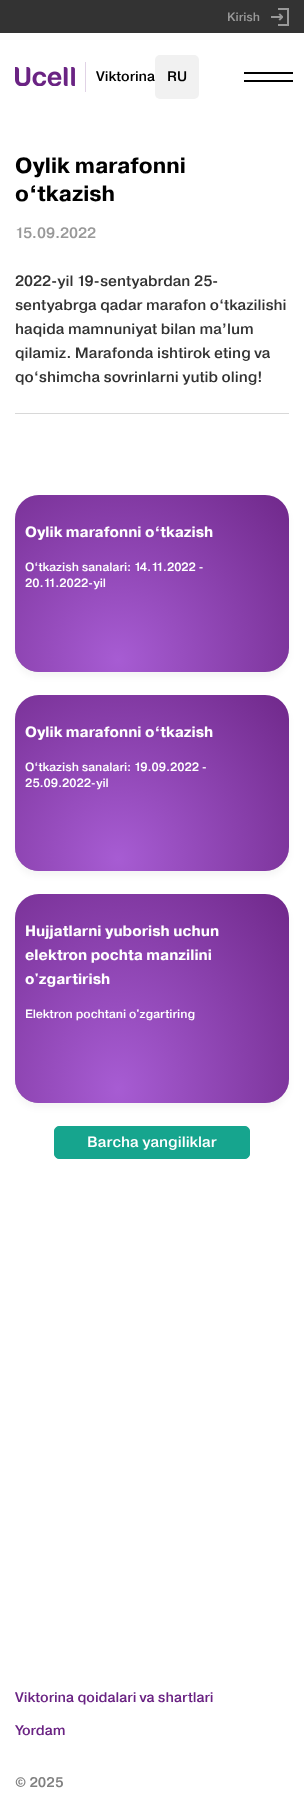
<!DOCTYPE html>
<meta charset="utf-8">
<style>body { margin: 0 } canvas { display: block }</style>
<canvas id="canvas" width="304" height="1814"></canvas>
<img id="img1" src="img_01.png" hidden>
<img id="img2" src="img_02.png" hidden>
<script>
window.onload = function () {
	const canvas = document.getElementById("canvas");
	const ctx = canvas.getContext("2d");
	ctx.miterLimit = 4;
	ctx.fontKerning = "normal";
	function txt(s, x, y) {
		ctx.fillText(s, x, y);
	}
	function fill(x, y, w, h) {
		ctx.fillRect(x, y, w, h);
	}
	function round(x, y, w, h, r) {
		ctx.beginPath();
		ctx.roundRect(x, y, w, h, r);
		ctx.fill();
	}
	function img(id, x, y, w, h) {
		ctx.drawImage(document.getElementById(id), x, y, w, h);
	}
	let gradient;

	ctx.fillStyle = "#FFFFFF";
	fill(0, 0, 304, 1814);
	ctx.fillStyle = "#333333";
	fill(0, 0, 304, 33);
	img("img1", 271, 8, 18, 18);
	img("img2", 15, 67, 60, 19);
	ctx.fillStyle = "#E1D3E6";
	fill(85, 62, 1, 30);
	ctx.fillStyle = "#F1F1F1";
	round(155, 55, 44, 44, 5);
	ctx.fillStyle = "#000000";
	fill(244, 72, 49, 2);
	fill(244, 80, 49, 2);
	ctx.fillStyle = "#D8D8D8";
	fill(15, 413, 274, 1);
	ctx.fillStyle = "rgba(0, 0, 0, 0.04)";
	ctx.filter = "blur(3px)";
	ctx.beginPath();
	ctx.roundRect(15, 500, 274, 177, 24);
	ctx.fill();
	ctx.filter = "none";
	ctx.fillStyle = "#6A2383";
	round(15, 495, 274, 177, 24);
	gradient = ctx.createRadialGradient(118, 621.03, 0, 118, 621.03, 255);
	gradient.addColorStop(0, "#7C499A");
	gradient.addColorStop(0, "#A75CD3");
	gradient.addColorStop(1, "rgba(167, 92, 211, 0)");
	ctx.fillStyle = gradient;
	ctx.beginPath();
	ctx.roundRect(15, 495, 274, 177, 24);
	ctx.save();
	ctx.clip();
	ctx.scale(1, 271 / 255);
	ctx.fillRect(0, 0, 304, 1707);
	ctx.restore();
	ctx.fillStyle = "rgba(0, 0, 0, 0.04)";
	ctx.filter = "blur(3px)";
	ctx.beginPath();
	ctx.roundRect(15, 700, 274, 176, 24);
	ctx.fill();
	ctx.filter = "none";
	ctx.fillStyle = "#6A2383";
	round(15, 695, 274, 176, 24);
	gradient = ctx.createRadialGradient(118, 814.29, 0, 118, 814.29, 255);
	gradient.addColorStop(0, "#7C499A");
	gradient.addColorStop(0, "#A75CD3");
	gradient.addColorStop(1, "rgba(167, 92, 211, 0)");
	ctx.fillStyle = gradient;
	ctx.beginPath();
	ctx.roundRect(15, 695, 274, 176, 24);
	ctx.save();
	ctx.clip();
	ctx.scale(1, 269 / 255);
	ctx.fillRect(0, 0, 304, 1720);
	ctx.restore();
	ctx.fillStyle = "rgba(0, 0, 0, 0.04)";
	ctx.filter = "blur(3px)";
	ctx.beginPath();
	ctx.roundRect(15, 899, 274, 209, 24);
	ctx.fill();
	ctx.filter = "none";
	ctx.fillStyle = "#6A2383";
	round(15, 894, 274, 209, 24);
	gradient = ctx.createRadialGradient(118, 867.8, 0, 118, 867.8, 255);
	gradient.addColorStop(0, "#7C499A");
	gradient.addColorStop(0, "#A75CD3");
	gradient.addColorStop(1, "rgba(167, 92, 211, 0)");
	ctx.fillStyle = gradient;
	ctx.beginPath();
	ctx.roundRect(15, 894, 274, 209, 24);
	ctx.save();
	ctx.clip();
	ctx.scale(1, 320 / 255);
	ctx.fillRect(0, 0, 304, 1446);
	ctx.restore();
	ctx.fillStyle = "#16A58E";
	ctx.beginPath();
	ctx.roundRect(54.5, 1126.5, 195, 32, 4.5);
	ctx.fill();
	ctx.strokeStyle = "#16A58E";
	ctx.stroke();
	ctx.font = "500 12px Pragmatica";
	ctx.fillStyle = "#999999";
	txt("Kirish", 227, 21);
	ctx.font = "500 14px Pragmatica";
	ctx.fillStyle = "#000000";
	txt("Viktorina", 96, 81);
	txt("RU", 167, 81);
	ctx.font = "bold 22px Pragmatica";
	txt("Oylik marafonni", 15, 173);
	txt("o‘tkazish", 15, 201);
	ctx.font = "500 15px Pragmatica";
	ctx.fillStyle = "#999999";
	txt("15.09.2022", 15, 238);
	ctx.fillStyle = "#333333";
	txt("2022-yil 19-sentyabrdan 25-", 15, 286);
	txt("sentyabrga qadar marafon o‘tkazilishi", 15, 310);
	txt("haqida mamnuniyat bilan ma’lum", 15, 334);
	txt("qilamiz. Marafonda ishtirok eting va", 15, 358);
	txt("qo‘shimcha sovrinlarni yutib oling!", 15, 382);
	ctx.font = "bold 15px Pragmatica";
	ctx.fillStyle = "#FFFFFF";
	txt("Oylik marafonni o‘tkazish", 25, 537);
	ctx.font = "500 12px Pragmatica";
	txt("O‘tkazish sanalari: 14.11.2022 -", 25, 571);
	txt("20.11.2022-yil", 25, 587);
	ctx.font = "bold 15px Pragmatica";
	txt("Oylik marafonni o‘tkazish", 25, 737);
	ctx.font = "500 12px Pragmatica";
	txt("O‘tkazish sanalari: 19.09.2022 -", 25, 771);
	txt("25.09.2022-yil", 25, 787);
	ctx.font = "bold 15px Pragmatica";
	txt("Hujjatlarni yuborish uchun", 25, 936);
	txt("elektron pochta manzilini", 25, 960);
	txt("o'zgartirish", 25, 984);
	ctx.font = "500 12px Pragmatica";
	txt("Elektron pochtani o'zgartiring", 25, 1018);
	ctx.font = "500 15px Pragmatica";
	txt("Barcha yangiliklar", 87, 1147);
	ctx.font = "500 14px Pragmatica";
	ctx.fillStyle = "#6A2383";
	txt("Viktorina qoidalari va shartlari", 15, 1702);
	txt("Yordam", 15, 1735);
	ctx.fillStyle = "#808080";
	txt("© 2025", 15, 1787);
};
</script>
